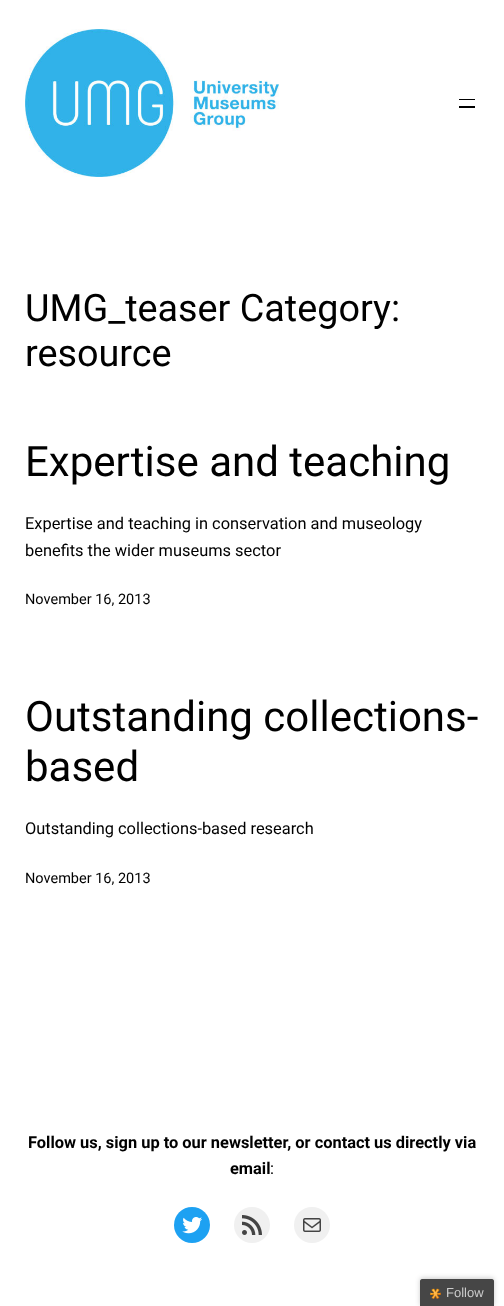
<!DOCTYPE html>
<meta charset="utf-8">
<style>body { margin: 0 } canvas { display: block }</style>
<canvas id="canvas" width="504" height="1306"></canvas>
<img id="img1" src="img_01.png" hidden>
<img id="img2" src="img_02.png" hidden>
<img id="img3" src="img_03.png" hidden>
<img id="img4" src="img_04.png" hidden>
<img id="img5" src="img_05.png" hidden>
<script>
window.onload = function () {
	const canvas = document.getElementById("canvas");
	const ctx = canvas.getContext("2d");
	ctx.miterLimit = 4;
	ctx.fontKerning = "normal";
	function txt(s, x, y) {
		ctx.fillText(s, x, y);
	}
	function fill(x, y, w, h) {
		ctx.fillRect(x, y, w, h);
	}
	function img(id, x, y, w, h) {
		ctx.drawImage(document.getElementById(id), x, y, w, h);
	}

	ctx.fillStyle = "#FFFFFF";
	fill(0, 0, 504, 1306);
	img("img1", 25, 29, 254, 148);
	ctx.fillStyle = "#000000";
	fill(459, 99, 16, 1);
	fill(459, 106, 16, 2);
	ctx.fillStyle = "#1DA1F2";
	ctx.beginPath();
	ctx.arc(192, 1225, 18, 0, Math.PI * 2);
	ctx.fill();
	img("img2", 182, 1217, 20, 17);
	ctx.fillStyle = "#F0F0F0";
	ctx.beginPath();
	ctx.arc(252, 1225, 18, 0, Math.PI * 2);
	ctx.fill();
	img("img3", 242, 1215, 20, 20);
	ctx.beginPath();
	ctx.arc(312, 1225, 18, 0, Math.PI * 2);
	ctx.fill();
	img("img4", 303, 1218, 18, 14);
	ctx.fillStyle = "rgba(0, 0, 0, 0.2)";
	ctx.filter = "blur(2.5px)";
	ctx.beginPath();
	ctx.roundRect(420, 1278, 74, 28, 2);
	ctx.fill();
	ctx.filter = "none";
	ctx.fillStyle = "#464646";
	ctx.beginPath();
	ctx.moveTo(422, 1279);
	ctx.lineTo(492, 1279);
	ctx.bezierCurveTo(493, 1279, 494, 1280, 494, 1281);
	ctx.lineTo(494, 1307);
	ctx.lineTo(420, 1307);
	ctx.lineTo(420, 1281);
	ctx.bezierCurveTo(420, 1280, 421, 1279, 422, 1279);
	ctx.closePath();
	ctx.fill();
	img("img5", 430, 1288, 11, 11);
	ctx.font = "37.75px Roboto";
	ctx.fillStyle = "#000000";
	txt("UMG_teaser Category:", 25, 321);
	txt("resource", 25, 366);
	ctx.font = "42px Roboto";
	txt("Expertise and teaching", 25, 476);
	ctx.font = "16.4px Roboto";
	txt("Expertise and teaching in conservation and museology", 25, 529);
	txt("benefits the wider museums sector", 25, 556);
	ctx.font = "14.5px Roboto";
	txt("November 16, 2013", 25, 604);
	ctx.font = "42px Roboto";
	txt("Outstanding collections-", 25, 731);
	txt("based", 25, 781);
	ctx.font = "16.4px Roboto";
	txt("Outstanding collections-based research", 25, 834);
	ctx.font = "14.5px Roboto";
	txt("November 16, 2013", 25, 883);
	ctx.font = "bold 16.4px Roboto";
	txt("Follow us, sign up to our newsletter, or contact us directly via", 28, 1148);
	txt("email", 230, 1174);
	ctx.font = "16.4px Roboto";
	txt(":", 270, 1174);
	ctx.font = "13px Liberation Sans";
	ctx.fillStyle = "#CCCCCC";
	txt("Follow", 446, 1297);
};
</script>
